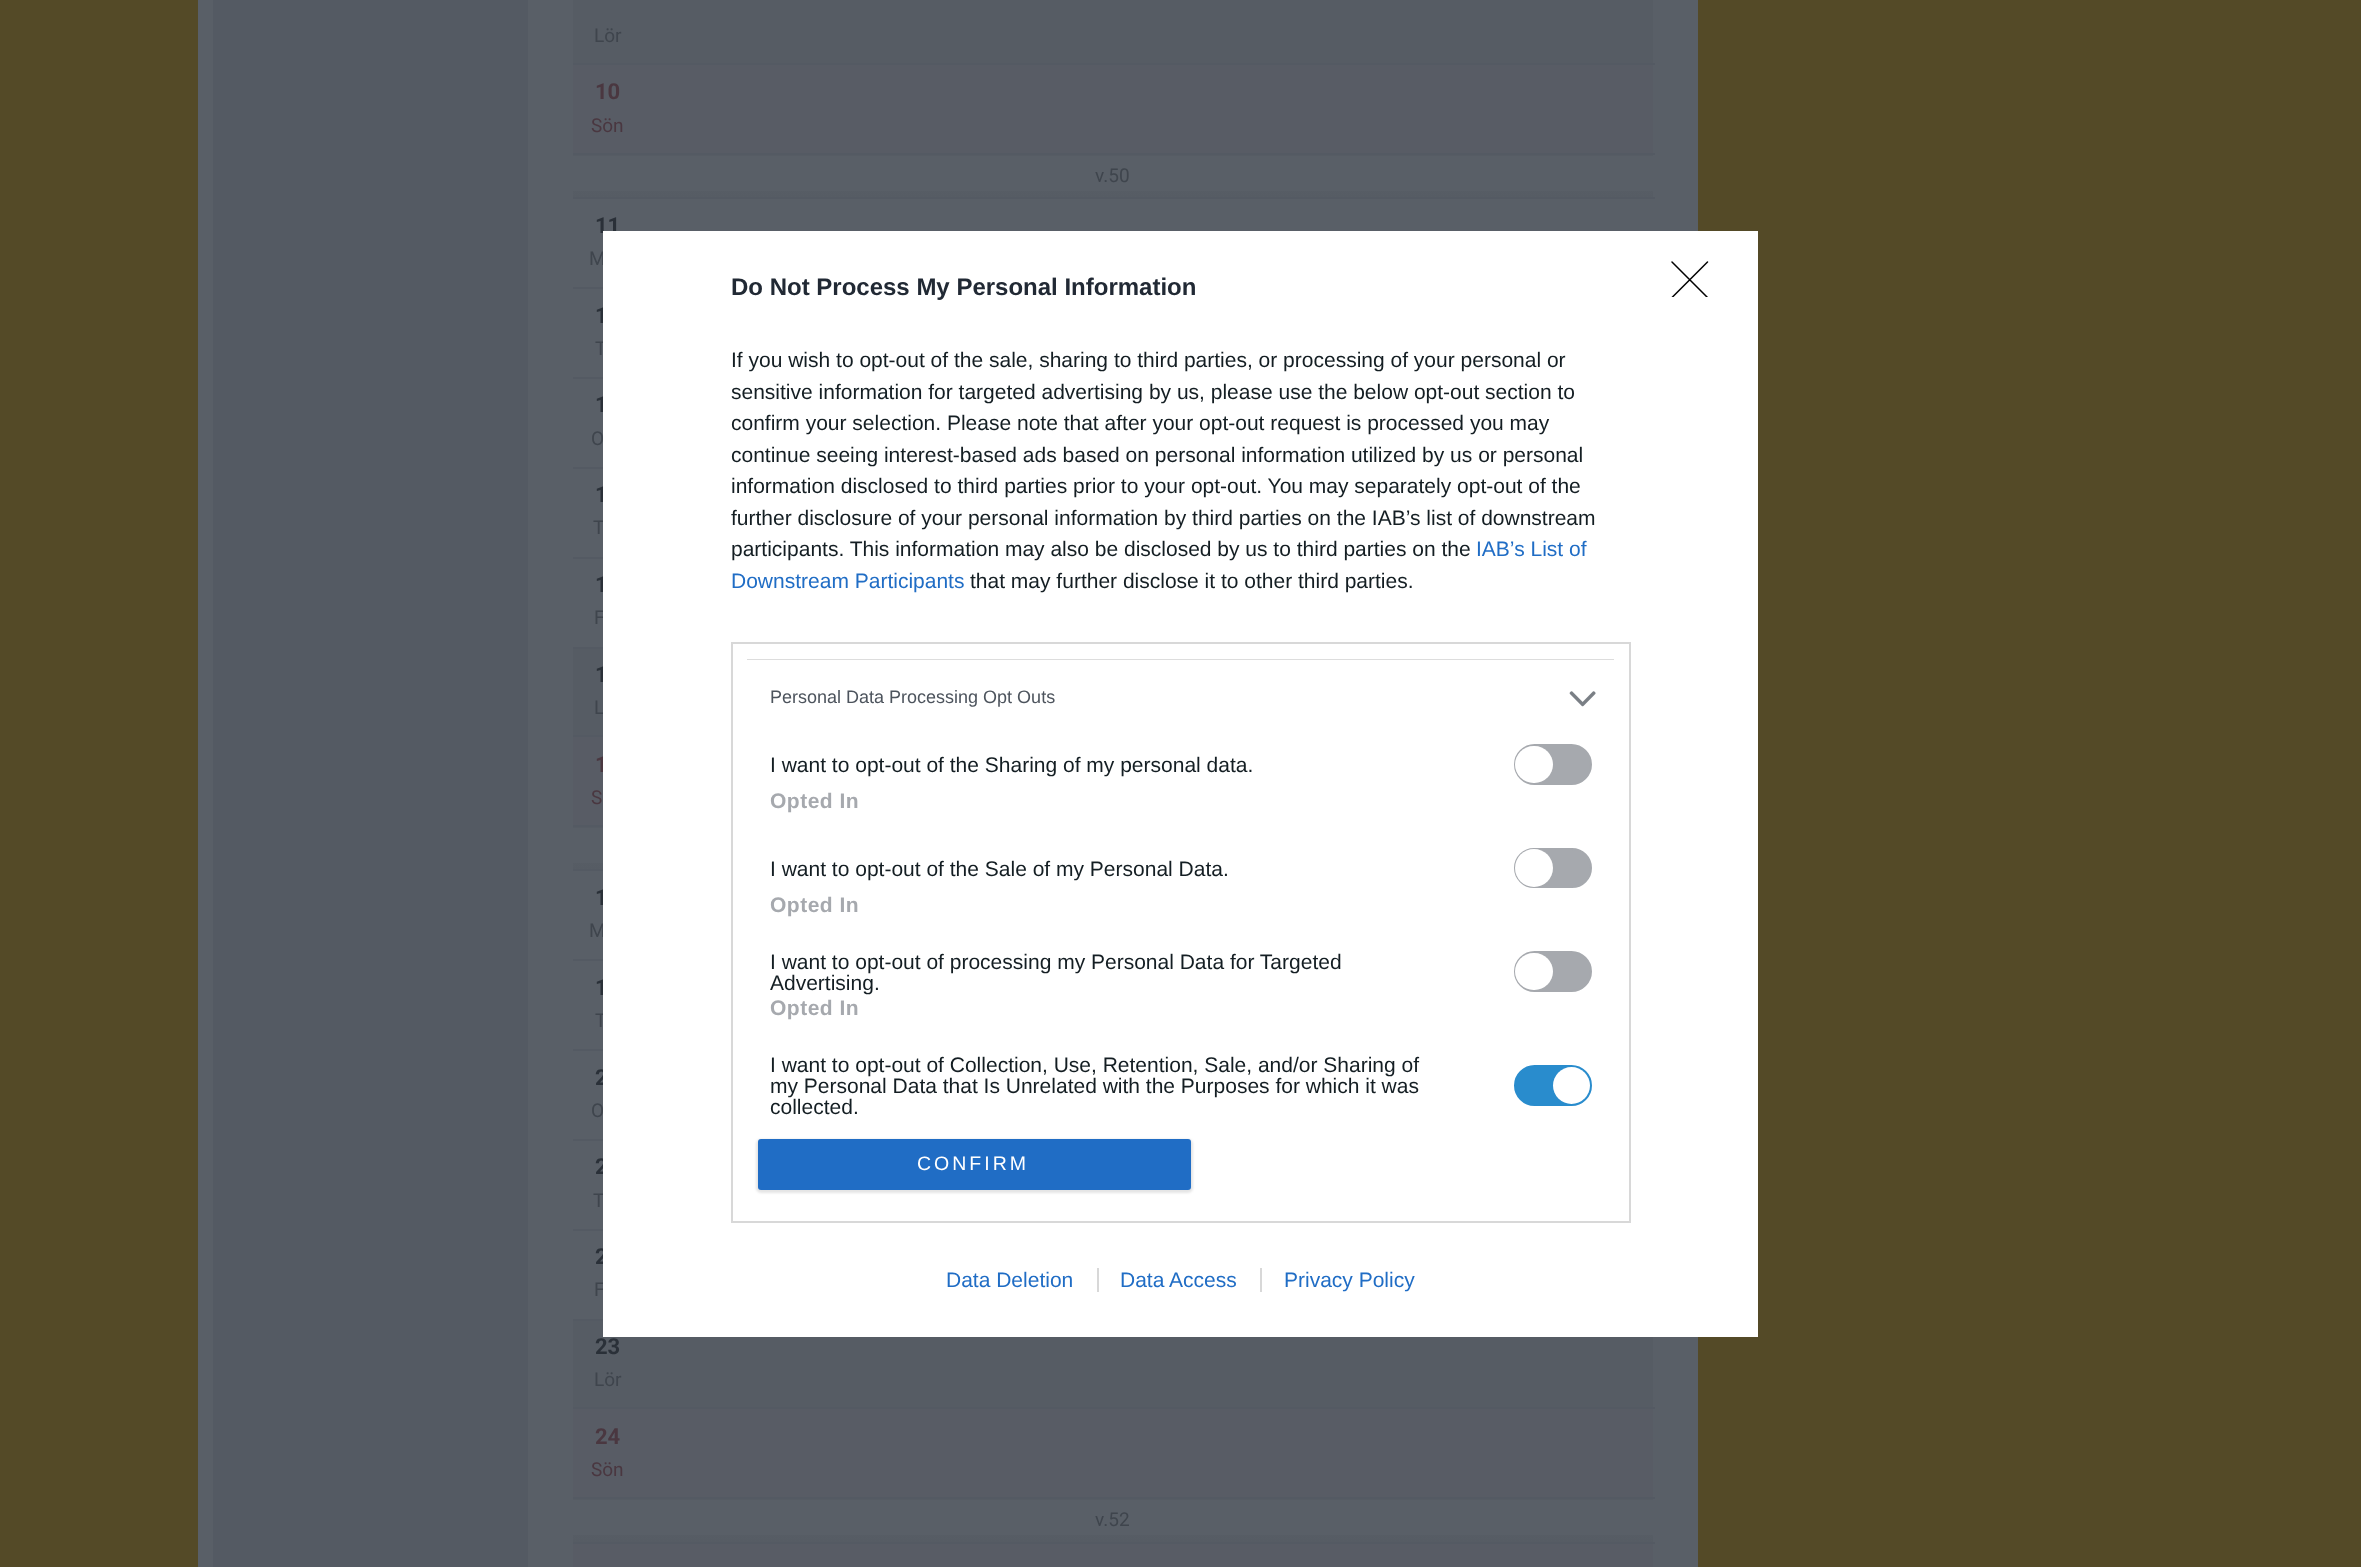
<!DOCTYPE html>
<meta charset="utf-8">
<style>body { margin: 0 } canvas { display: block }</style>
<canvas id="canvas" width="2361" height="1567"></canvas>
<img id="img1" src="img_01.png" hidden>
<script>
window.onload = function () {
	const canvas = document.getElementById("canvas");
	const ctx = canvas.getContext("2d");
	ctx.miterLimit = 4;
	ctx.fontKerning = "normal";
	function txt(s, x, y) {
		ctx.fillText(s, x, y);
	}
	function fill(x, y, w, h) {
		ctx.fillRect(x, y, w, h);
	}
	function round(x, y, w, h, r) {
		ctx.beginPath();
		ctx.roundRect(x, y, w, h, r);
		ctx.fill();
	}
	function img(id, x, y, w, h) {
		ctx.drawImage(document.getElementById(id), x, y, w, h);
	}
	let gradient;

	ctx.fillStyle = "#544A27";
	fill(0, 0, 2361, 1567);
	ctx.fillStyle = "#595F67";
	fill(198, 0, 1500, 1567);
	ctx.fillStyle = "#545A63";
	fill(213, 0, 315, 1567);
	ctx.fillStyle = "#565C64";
	fill(573, 0, 1080, 63);
	ctx.fillStyle = "#545A63";
	fill(573, 63, 1082, 2);
	ctx.fillStyle = "#585C65";
	fill(573, 65, 1080, 88);
	gradient = ctx.createLinearGradient(1113, 114, 1113, 156);
	gradient.addColorStop(0, "#595F67");
	gradient.addColorStop(1, "#565C64");
	ctx.fillStyle = gradient;
	fill(573, 155, 1080, 1);
	gradient = ctx.createLinearGradient(1113, 156, 1113, 198);
	gradient.addColorStop(0, "#595F67");
	gradient.addColorStop(1, "#565C64");
	ctx.fillStyle = gradient;
	fill(573, 191, 1080, 6);
	ctx.fillStyle = "#545A63";
	fill(573, 153, 1082, 2);
	fill(573, 197, 1082, 2);
	fill(573, 287, 30, 2);
	fill(573, 377, 30, 2);
	fill(573, 467, 30, 2);
	fill(573, 557, 30, 2);
	ctx.fillStyle = "#565C64";
	fill(573, 649, 30, 86);
	ctx.fillStyle = "#545A63";
	fill(573, 647, 30, 2);
	ctx.fillStyle = "#585C65";
	fill(573, 737, 30, 88);
	ctx.fillStyle = "#545A63";
	fill(573, 735, 30, 2);
	gradient = ctx.createLinearGradient(1113, 786, 1113, 828);
	gradient.addColorStop(0, "#595F67");
	gradient.addColorStop(1, "#565C64");
	ctx.fillStyle = gradient;
	fill(573, 827, 30, 1);
	gradient = ctx.createLinearGradient(1113, 828, 1113, 870);
	gradient.addColorStop(0, "#595F67");
	gradient.addColorStop(1, "#565C64");
	ctx.fillStyle = gradient;
	fill(573, 863, 30, 6);
	ctx.fillStyle = "#545A63";
	fill(573, 825, 30, 2);
	fill(573, 869, 30, 2);
	fill(573, 959, 30, 2);
	fill(573, 1049, 30, 2);
	fill(573, 1139, 30, 2);
	fill(573, 1229, 30, 2);
	ctx.fillStyle = "#565C64";
	fill(573, 1321, 69, 86);
	ctx.fillStyle = "#545A63";
	fill(573, 1319, 30, 2);
	ctx.fillStyle = "#565C64";
	fill(642, 1337, 1011, 70);
	ctx.fillStyle = "#545A63";
	fill(573, 1407, 1082, 2);
	ctx.fillStyle = "#585C65";
	fill(573, 1409, 1080, 88);
	gradient = ctx.createLinearGradient(1113, 1458, 1113, 1500);
	gradient.addColorStop(0, "#595F67");
	gradient.addColorStop(1, "#565C64");
	ctx.fillStyle = gradient;
	fill(573, 1499, 1080, 1);
	gradient = ctx.createLinearGradient(1113, 1500, 1113, 1542);
	gradient.addColorStop(0, "#595F67");
	gradient.addColorStop(1, "#565C64");
	ctx.fillStyle = gradient;
	fill(573, 1535, 1080, 7);
	ctx.fillStyle = "#545A63";
	fill(573, 1497, 1082, 2);
	fill(573, 1542, 1082, 2);
	ctx.fillStyle = "#585C65";
	fill(573, 1544, 1080, 23);
	ctx.font = "19px Roboto";
	ctx.fillStyle = "#3F454D";
	txt("Lör", 594, 42);
	ctx.font = "bold 22px Roboto";
	ctx.fillStyle = "#4A3740";
	txt("10", 595, 99);
	ctx.font = "19px Roboto";
	txt("Sön", 591, 132);
	ctx.fillStyle = "#3F454D";
	txt("v.50", 1095, 182);
	ctx.font = "bold 22px Roboto";
	ctx.fillStyle = "#2A3038";
	txt("11", 595, 233);
	ctx.font = "19px Roboto";
	ctx.fillStyle = "#3F454D";
	txt("M", 589, 265);
	ctx.font = "bold 22px Roboto";
	ctx.fillStyle = "#2A3038";
	txt("1", 595, 323);
	ctx.font = "19px Roboto";
	ctx.fillStyle = "#3F454D";
	txt("T", 595, 355);
	ctx.font = "bold 22px Roboto";
	ctx.fillStyle = "#2A3038";
	txt("1", 595, 412);
	ctx.font = "19px Roboto";
	ctx.fillStyle = "#3F454D";
	txt("O", 591, 445);
	ctx.font = "bold 22px Roboto";
	ctx.fillStyle = "#2A3038";
	txt("1", 595, 502);
	ctx.font = "19px Roboto";
	ctx.fillStyle = "#3F454D";
	txt("T", 593, 534);
	ctx.font = "bold 22px Roboto";
	ctx.fillStyle = "#2A3038";
	txt("1", 595, 592);
	ctx.font = "19px Roboto";
	ctx.fillStyle = "#3F454D";
	txt("F", 594, 624);
	ctx.font = "bold 22px Roboto";
	ctx.fillStyle = "#2A3038";
	txt("1", 595, 682);
	ctx.font = "19px Roboto";
	ctx.fillStyle = "#3F454D";
	txt("L", 594, 714);
	ctx.font = "bold 22px Roboto";
	ctx.fillStyle = "#4A3740";
	txt("1", 595, 772);
	ctx.font = "19px Roboto";
	txt("S", 591, 804);
	ctx.font = "bold 22px Roboto";
	ctx.fillStyle = "#2A3038";
	txt("1", 595, 905);
	ctx.font = "19px Roboto";
	ctx.fillStyle = "#3F454D";
	txt("M", 589, 937);
	ctx.font = "bold 22px Roboto";
	ctx.fillStyle = "#2A3038";
	txt("1", 595, 995);
	ctx.font = "19px Roboto";
	ctx.fillStyle = "#3F454D";
	txt("T", 595, 1027);
	ctx.font = "bold 22px Roboto";
	ctx.fillStyle = "#2A3038";
	txt("2", 595, 1085);
	ctx.font = "19px Roboto";
	ctx.fillStyle = "#3F454D";
	txt("O", 591, 1117);
	ctx.font = "bold 22px Roboto";
	ctx.fillStyle = "#2A3038";
	txt("2", 595, 1174);
	ctx.font = "19px Roboto";
	ctx.fillStyle = "#3F454D";
	txt("T", 593, 1207);
	ctx.font = "bold 22px Roboto";
	ctx.fillStyle = "#2A3038";
	txt("2", 595, 1264);
	ctx.font = "19px Roboto";
	ctx.fillStyle = "#3F454D";
	txt("F", 594, 1296);
	ctx.font = "bold 22px Roboto";
	ctx.fillStyle = "#2A3038";
	txt("23", 595, 1354);
	ctx.font = "19px Roboto";
	ctx.fillStyle = "#3F454D";
	txt("Lör", 594, 1386);
	ctx.font = "bold 22px Roboto";
	ctx.fillStyle = "#4A3740";
	txt("24", 595, 1444);
	ctx.font = "19px Roboto";
	txt("Sön", 591, 1476);
	ctx.fillStyle = "#3F454D";
	txt("v.52", 1095, 1526);
	ctx.fillStyle = "#FFFFFF";
	fill(603, 231, 1155, 1106);
	ctx.font = "bold 24px Liberation Sans";
	ctx.fillStyle = "#212934";
	txt("Do Not Process My Personal Information", 731, 295);
	ctx.font = "21px Liberation Sans";
	ctx.fillStyle = "#141E23";
	txt("If you wish to opt-out of the sale, sharing to third parties, or processing of your personal or", 731, 367);
	txt("sensitive information for targeted advertising by us, please use the below opt-out section to", 731, 399);
	txt("confirm your selection. Please note that after your opt-out request is processed you may", 731, 430);
	txt("continue seeing interest-based ads based on personal information utilized by us or personal", 731, 462);
	txt("information disclosed to third parties prior to your opt-out. You may separately opt-out of the", 731, 493);
	txt("further disclosure of your personal information by third parties on the IAB’s list of downstream", 731, 525);
	txt("participants. This information may also be disclosed by us to third parties on the", 731, 556);
	ctx.fillStyle = "#206DC5";
	txt("IAB’s List of", 1476, 556);
	txt("Downstream Participants", 731, 588);
	ctx.fillStyle = "#141E23";
	txt("that may further disclose it to other third parties.", 970, 588);
	ctx.strokeStyle = "#D8D8D8";
	ctx.lineWidth = 2;
	ctx.strokeRect(732, 643, 898, 579);
	ctx.fillStyle = "#DDDDDD";
	fill(747, 659, 867, 1);
	ctx.font = "18px Liberation Sans";
	ctx.fillStyle = "#4D545D";
	txt("Personal Data Processing Opt Outs", 770, 703);
	img("img1", 1569, 691, 27, 16);
	ctx.font = "21px Liberation Sans";
	ctx.fillStyle = "#141E23";
	txt("I want to opt-out of the Sharing of my personal data.", 770, 772);
	ctx.fillStyle = "#A6A9AE";
	ctx.beginPath();
	ctx.roundRect(1515, 745, 76, 39, 19.5);
	ctx.fill();
	ctx.strokeStyle = "#A6A9AE";
	ctx.stroke();
	ctx.fillStyle = "#FFFFFF";
	round(1515, 746, 38, 37, 18.5);
	ctx.letterSpacing = "0.5px";
	ctx.font = "bold 21px Liberation Sans";
	ctx.fillStyle = "#A6A9AE";
	txt("Opted In", 770, 808);
	ctx.letterSpacing = "0px";
	ctx.font = "21px Liberation Sans";
	ctx.fillStyle = "#141E23";
	txt("I want to opt-out of the Sale of my Personal Data.", 770, 876);
	ctx.fillStyle = "#A6A9AE";
	ctx.beginPath();
	ctx.roundRect(1515, 849, 76, 38, 19);
	ctx.fill();
	ctx.stroke();
	ctx.fillStyle = "#FFFFFF";
	ctx.beginPath();
	ctx.arc(1534, 868, 19, 0, Math.PI * 2);
	ctx.fill();
	ctx.letterSpacing = "0.5px";
	ctx.font = "bold 21px Liberation Sans";
	ctx.fillStyle = "#A6A9AE";
	txt("Opted In", 770, 912);
	ctx.letterSpacing = "0px";
	ctx.font = "21px Liberation Sans";
	ctx.fillStyle = "#141E23";
	txt("I want to opt-out of processing my Personal Data for Targeted", 770, 969);
	txt("Advertising.", 770, 990);
	ctx.fillStyle = "#A6A9AE";
	ctx.beginPath();
	ctx.roundRect(1515, 952, 76, 39, 19.5);
	ctx.fill();
	ctx.stroke();
	ctx.fillStyle = "#FFFFFF";
	round(1515, 953, 38, 37, 18.5);
	ctx.letterSpacing = "0.5px";
	ctx.font = "bold 21px Liberation Sans";
	ctx.fillStyle = "#A6A9AE";
	txt("Opted In", 770, 1015);
	ctx.letterSpacing = "0px";
	ctx.font = "21px Liberation Sans";
	ctx.fillStyle = "#141E23";
	txt("I want to opt-out of Collection, Use, Retention, Sale, and/or Sharing of", 770, 1072);
	txt("my Personal Data that Is Unrelated with the Purposes for which it was", 770, 1093);
	txt("collected.", 770, 1114);
	ctx.fillStyle = "#298CCD";
	ctx.beginPath();
	ctx.roundRect(1515, 1066, 76, 39, 19.5);
	ctx.fill();
	ctx.strokeStyle = "#298CCD";
	ctx.stroke();
	ctx.fillStyle = "#FFFFFF";
	ctx.beginPath();
	ctx.arc(1571.5, 1085.5, 18.5, 0, Math.PI * 2);
	ctx.fill();
	ctx.fillStyle = "rgba(0, 0, 0, 0.1)";
	ctx.filter = "blur(1px)";
	ctx.beginPath();
	ctx.roundRect(756, 1139, 437, 54, 5);
	ctx.fill();
	ctx.filter = "none";
	ctx.fillStyle = "#206DC5";
	round(758, 1139, 433, 51, 3);
	ctx.letterSpacing = "3px";
	ctx.font = "19.5px Liberation Sans";
	ctx.fillStyle = "#FFFFFF";
	txt("CONFIRM", 917, 1170);
	ctx.save();
	ctx.beginPath();
	ctx.rect(1671, 261, 38, 36);
	ctx.clip();
	ctx.beginPath();
	ctx.moveTo(1672, 262);
	ctx.lineTo(1707.5, 297.5);
	ctx.moveTo(1707.5, 262);
	ctx.lineTo(1672, 297.5);
	ctx.strokeStyle = "#000000";
	ctx.lineWidth = 1.5;
	ctx.lineCap = "round";
	ctx.lineJoin = "round";
	ctx.stroke();
	ctx.restore();
	ctx.letterSpacing = "0px";
	ctx.font = "21px Liberation Sans";
	ctx.fillStyle = "#206DC5";
	txt("Data Deletion", 946, 1287);
	txt("Data Access", 1120, 1287);
	ctx.fillStyle = "#D8D8D8";
	fill(1097, 1268, 2, 24);
	ctx.fillStyle = "#206DC5";
	txt("Privacy Policy", 1284, 1287);
	ctx.fillStyle = "#D8D8D8";
	fill(1260, 1268, 2, 24);
};
</script>
